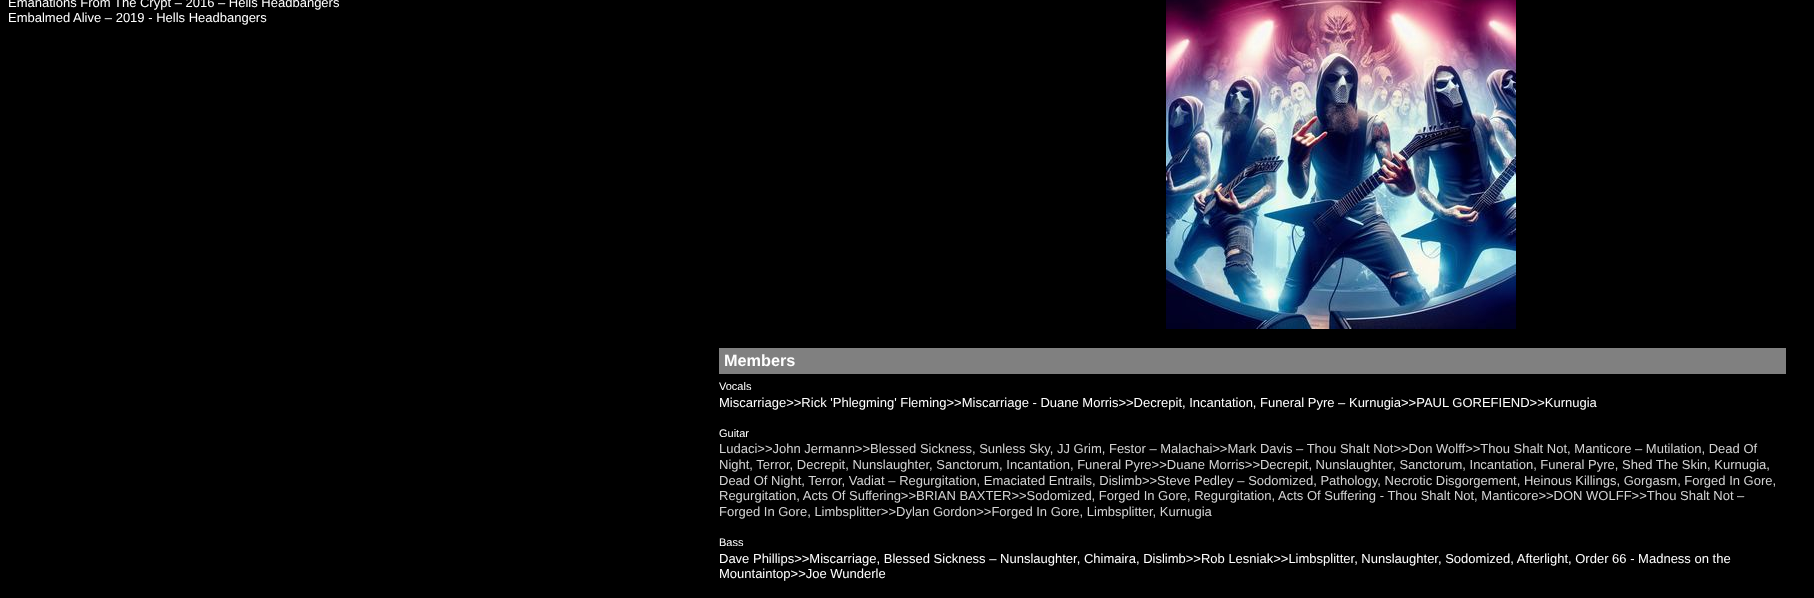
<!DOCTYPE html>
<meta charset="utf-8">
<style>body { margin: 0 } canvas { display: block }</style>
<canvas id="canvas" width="1814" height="598"></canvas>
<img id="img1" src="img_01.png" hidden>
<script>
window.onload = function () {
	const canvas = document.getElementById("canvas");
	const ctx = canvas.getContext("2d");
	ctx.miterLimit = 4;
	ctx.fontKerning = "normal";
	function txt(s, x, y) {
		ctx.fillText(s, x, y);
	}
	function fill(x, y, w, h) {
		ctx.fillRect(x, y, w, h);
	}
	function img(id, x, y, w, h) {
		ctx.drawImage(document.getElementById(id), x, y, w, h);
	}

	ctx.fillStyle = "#000000";
	fill(0, 0, 1814, 598);
	img("img1", 1166, 0, 350, 329);
	ctx.fillStyle = "#808080";
	fill(719, 348, 1067, 26);
	ctx.font = "13px Liberation Sans";
	ctx.fillStyle = "#FFFFFF";
	txt("Emanations From The Crypt – 2016 – Hells Headbangers", 8, 7);
	txt("Embalmed Alive – 2019 - Hells Headbangers", 8, 22);
	ctx.font = "bold 16.25px Liberation Sans";
	txt("Members", 724, 366);
	ctx.font = "11px Liberation Sans";
	txt("Vocals", 719, 390);
	ctx.font = "13px Liberation Sans";
	txt("Miscarriage>>Rick 'Phlegming' Fleming>>Miscarriage - Duane Morris>>Decrepit, Incantation, Funeral Pyre – Kurnugia>>PAUL GOREFIEND>>Kurnugia", 719, 407);
	ctx.font = "11px Liberation Sans";
	txt("Guitar", 719, 437);
	ctx.font = "13px Liberation Sans";
	ctx.fillStyle = "#D3D3D3";
	txt("Ludaci>>John Jermann>>Blessed Sickness, Sunless Sky, JJ Grim, Festor – Malachai>>Mark Davis – Thou Shalt Not>>Don Wolff>>Thou Shalt Not, Manticore – Mutilation, Dead Of", 719, 453);
	txt("Night, Terror, Decrepit, Nunslaughter, Sanctorum, Incantation, Funeral Pyre>>Duane Morris>>Decrepit, Nunslaughter, Sanctorum, Incantation, Funeral Pyre, Shed The Skin, Kurnugia,", 719, 469);
	txt("Dead Of Night, Terror, Vadiat – Regurgitation, Emaciated Entrails, Dislimb>>Steve Pedley – Sodomized, Pathology, Necrotic Disgorgement, Heinous Killings, Gorgasm, Forged In Gore,", 719, 485);
	txt("Regurgitation, Acts Of Suffering>>BRIAN BAXTER>>Sodomized, Forged In Gore, Regurgitation, Acts Of Suffering - Thou Shalt Not, Manticore>>DON WOLFF>>Thou Shalt Not –", 719, 500);
	txt("Forged In Gore, Limbsplitter>>Dylan Gordon>>Forged In Gore, Limbsplitter, Kurnugia", 719, 516);
	ctx.font = "11px Liberation Sans";
	ctx.fillStyle = "#FFFFFF";
	txt("Bass", 719, 546);
	ctx.font = "13px Liberation Sans";
	txt("Dave Phillips>>Miscarriage, Blessed Sickness – Nunslaughter, Chimaira, Dislimb>>Rob Lesniak>>Limbsplitter, Nunslaughter, Sodomized, Afterlight, Order 66 - Madness on the", 719, 563);
	txt("Mountaintop>>Joe Wunderle", 719, 578);
};
</script>
